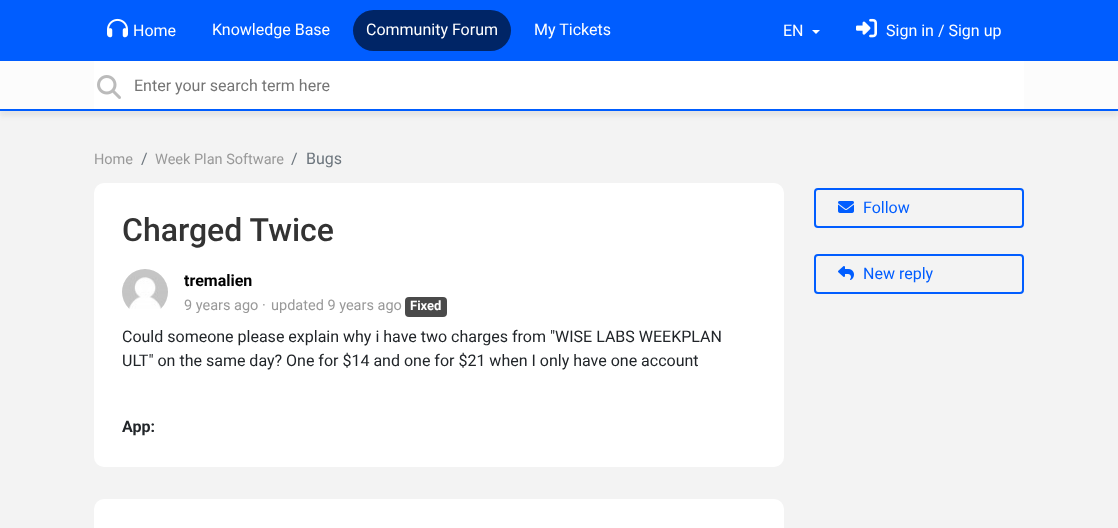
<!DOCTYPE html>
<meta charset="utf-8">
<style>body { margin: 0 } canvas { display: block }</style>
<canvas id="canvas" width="1118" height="528"></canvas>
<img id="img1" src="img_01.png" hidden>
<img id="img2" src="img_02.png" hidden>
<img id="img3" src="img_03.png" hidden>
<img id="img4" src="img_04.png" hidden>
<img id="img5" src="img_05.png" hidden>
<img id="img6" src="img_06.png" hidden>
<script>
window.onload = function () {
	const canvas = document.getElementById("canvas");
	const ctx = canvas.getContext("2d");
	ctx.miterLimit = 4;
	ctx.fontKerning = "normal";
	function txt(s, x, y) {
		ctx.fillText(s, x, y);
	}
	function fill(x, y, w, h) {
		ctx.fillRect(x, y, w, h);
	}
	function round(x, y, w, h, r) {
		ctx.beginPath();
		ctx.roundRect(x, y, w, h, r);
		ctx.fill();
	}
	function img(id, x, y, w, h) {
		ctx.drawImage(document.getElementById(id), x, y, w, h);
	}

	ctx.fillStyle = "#F3F3F3";
	fill(0, 0, 1118, 528);
	ctx.fillStyle = "#005DFF";
	fill(0, 0, 1118, 61);
	img("img1", 107, 18, 21, 20);
	ctx.fillStyle = "#002566";
	round(353, 10, 158, 41, 20.5);
	ctx.fillStyle = "#FFFFFF";
	ctx.beginPath();
	ctx.moveTo(812, 30);
	ctx.lineTo(820, 30);
	ctx.lineTo(816, 34);
	ctx.closePath();
	ctx.fill();
	img("img2", 856, 18, 21, 20);
	ctx.fillStyle = "rgba(100, 100, 100, 0.1)";
	ctx.filter = "blur(2.5px)";
	ctx.beginPath();
	ctx.rect(0, 66, 1118, 50);
	ctx.fill();
	ctx.filter = "none";
	ctx.fillStyle = "#FCFCFC";
	fill(0, 61, 1118, 48);
	ctx.fillStyle = "#005DFF";
	fill(0, 109, 1118, 2);
	ctx.fillStyle = "#FFFFFF";
	fill(94, 61, 930, 48);
	img("img3", 97, 75, 24, 24);
	round(94, 183, 690, 284, 10);
	img("img4", 122, 269, 46, 40);
	ctx.fillStyle = "#4A4A4A";
	round(405, 297, 42, 20, 4);
	ctx.beginPath();
	ctx.roundRect(815, 189, 208, 38, 3);
	ctx.strokeStyle = "#005DFF";
	ctx.lineWidth = 2;
	ctx.stroke();
	img("img5", 838, 201, 16, 12);
	ctx.beginPath();
	ctx.roundRect(815, 255, 208, 38, 3);
	ctx.stroke();
	img("img6", 838, 266, 16, 14);
	ctx.fillStyle = "#FFFFFF";
	round(94, 499, 690, 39, 10);
	ctx.font = "16px Roboto";
	txt("Home", 133, 36);
	txt("Knowledge Base", 212, 35);
	txt("Community Forum", 366, 35);
	txt("My Tickets", 534, 35);
	txt("EN", 783, 36);
	txt("Sign in / Sign up", 886, 36);
	ctx.fillStyle = "#757575";
	txt("Enter your search term here", 134, 91);
	ctx.font = "14.5px Roboto";
	ctx.fillStyle = "#999999";
	txt("Home", 94, 164);
	ctx.font = "16px Roboto";
	ctx.fillStyle = "#6C757D";
	txt("/", 141, 164);
	ctx.font = "14.5px Roboto";
	ctx.fillStyle = "#999999";
	txt("Week Plan Software", 155, 164);
	ctx.font = "16px Roboto";
	ctx.fillStyle = "#6C757D";
	txt("/", 291, 164);
	txt("Bugs", 306, 164);
	ctx.font = "500 32px Roboto";
	ctx.fillStyle = "#333333";
	txt("Charged Twice", 122, 241);
	ctx.font = "bold 16px Roboto";
	ctx.fillStyle = "#000000";
	txt("tremalien", 184, 286);
	ctx.font = "14.5px Roboto";
	ctx.fillStyle = "#999999";
	txt("9 years ago", 184, 310);
	txt("·", 262, 310);
	txt("updated 9 years ago", 271, 310);
	ctx.font = "bold 13px Roboto";
	ctx.fillStyle = "#FFFFFF";
	txt("Fixed", 410, 310);
	ctx.font = "16px Roboto";
	ctx.fillStyle = "#212529";
	txt("Could someone please explain why i have two charges from \"WISE LABS WEEKPLAN", 122, 342);
	txt("ULT\" on the same day? One for $14 and one for $21 when I only have one account", 122, 366);
	ctx.font = "bold 16px Roboto";
	txt("App:", 122, 432);
	ctx.font = "16px Roboto";
	ctx.fillStyle = "#005DFF";
	txt("Follow", 863, 213);
	txt("New reply", 863, 279);
};
</script>
